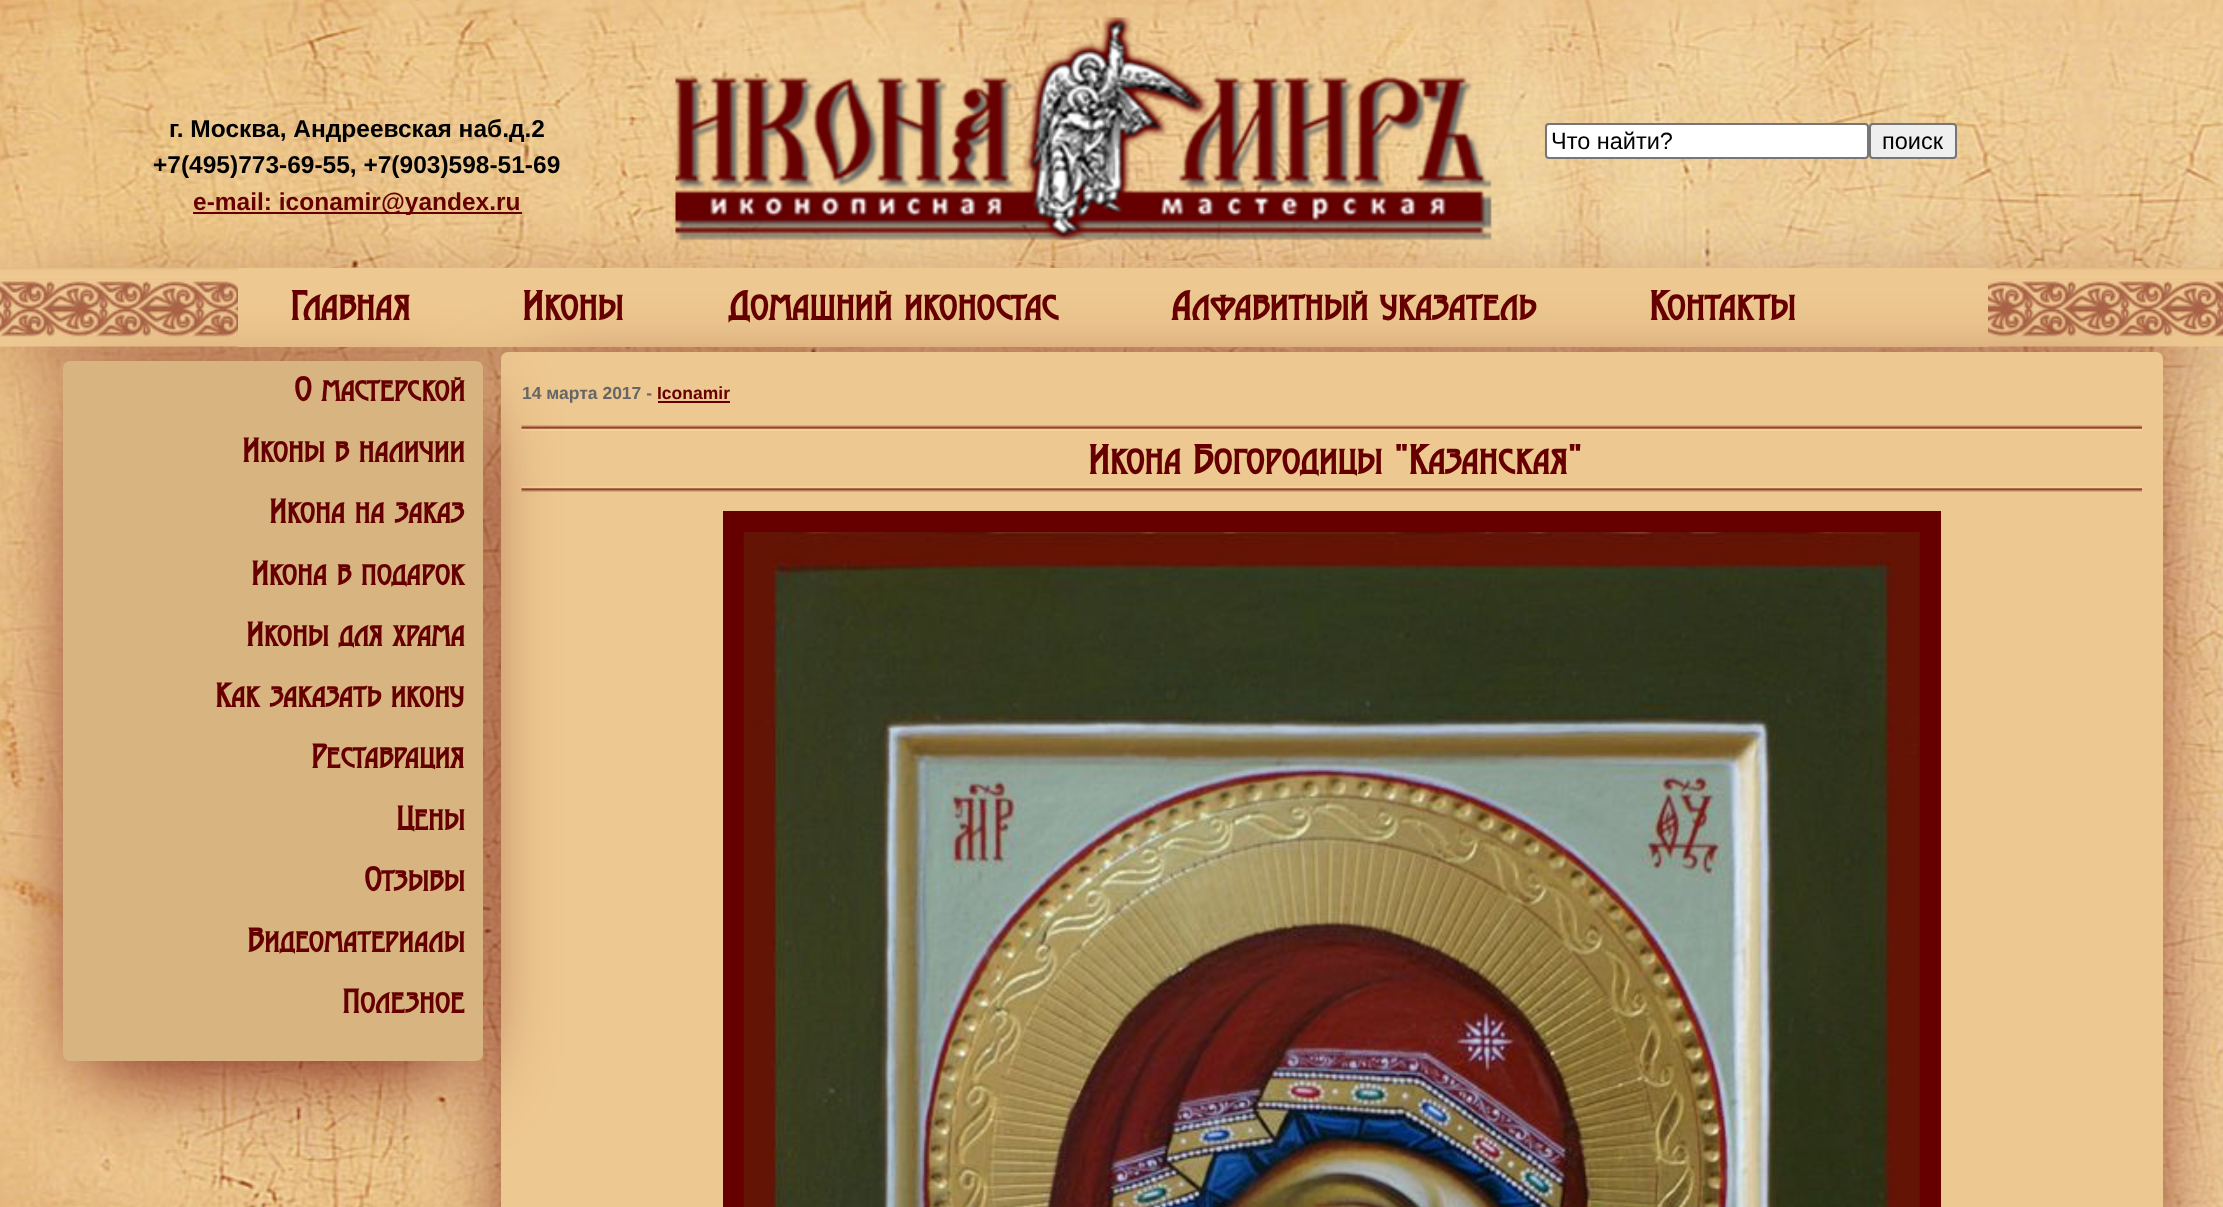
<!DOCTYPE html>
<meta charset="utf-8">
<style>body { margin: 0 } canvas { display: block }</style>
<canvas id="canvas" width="2223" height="1207"></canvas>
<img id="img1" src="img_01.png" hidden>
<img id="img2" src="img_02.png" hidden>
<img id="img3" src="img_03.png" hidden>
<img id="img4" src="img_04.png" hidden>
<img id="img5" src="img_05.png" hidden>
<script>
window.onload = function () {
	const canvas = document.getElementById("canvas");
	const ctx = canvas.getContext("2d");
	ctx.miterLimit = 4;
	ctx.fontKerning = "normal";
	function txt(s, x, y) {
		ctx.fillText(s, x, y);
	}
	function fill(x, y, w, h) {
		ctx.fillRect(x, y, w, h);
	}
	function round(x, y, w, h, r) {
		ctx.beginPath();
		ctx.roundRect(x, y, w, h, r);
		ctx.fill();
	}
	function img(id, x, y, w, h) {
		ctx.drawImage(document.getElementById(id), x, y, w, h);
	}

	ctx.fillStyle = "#FFFFFF";
	fill(0, 0, 2223, 1207);
	img("img1", 0, 0, 2223, 1207);
	ctx.fillStyle = "#660000";
	ctx.filter = "blur(44.5px)";
	ctx.beginPath();
	ctx.rect(23, 317, 2175, 30);
	ctx.fill();
	ctx.filter = "none";
	fill(193, 212, 329, 2);
	img("img2", 653, 17, 857, 246);
	ctx.fillStyle = "#FFFFFF";
	ctx.beginPath();
	ctx.roundRect(1546, 124, 322, 34, 3);
	ctx.fill();
	ctx.strokeStyle = "#767676";
	ctx.lineWidth = 2;
	ctx.stroke();
	ctx.fillStyle = "#EFEFEF";
	ctx.beginPath();
	ctx.roundRect(1870, 124, 86, 34, 3);
	ctx.fill();
	ctx.stroke();
	img("img3", 0, 267, 2223, 80);
	ctx.fillStyle = "#EDC890";
	fill(238, 268, 1750, 79);
	ctx.fillStyle = "#660000";
	ctx.filter = "blur(44.5px)";
	ctx.beginPath();
	ctx.rect(523, 401, 1614, 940);
	ctx.fill();
	ctx.filter = "none";
	ctx.fillStyle = "#EDC890";
	round(501, 352, 1662, 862, 7);
	img("img4", 521, 425, 1621, 67);
	ctx.fillStyle = "#660000";
	ctx.filter = "blur(44.5px)";
	ctx.beginPath();
	ctx.rect(86, 410, 371, 651);
	ctx.fill();
	ctx.filter = "none";
	ctx.fillStyle = "#D8B580";
	round(63, 361, 420, 700, 7);
	ctx.fillStyle = "#660000";
	fill(658, 401, 72, 2);
	fill(723, 511, 1218, 696);
	img("img5", 743, 532, 1177, 675);
	ctx.font = "bold 24.5px Liberation Sans";
	ctx.fillStyle = "#000000";
	txt("г. Москва, Андреевская наб.д.2", 169, 137);
	txt("+7(495)773-69-55, +7(903)598-51-69", 153, 173);
	ctx.fillStyle = "#660000";
	txt("e-mail: iconamir@yandex.ru", 193, 210);
	ctx.font = "23.5px Liberation Sans";
	ctx.fillStyle = "#000000";
	txt("Что найти?", 1551, 149);
	txt("поиск", 1882, 149);
	ctx.font = "bold 38.5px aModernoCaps";
	ctx.fillStyle = "#660000";
	txt("Главная", 290, 320);
	txt("Иконы", 522, 320);
	txt("Домашний иконостас", 728, 320);
	txt("Алфавитный указатель", 1171, 320);
	txt("Контакты", 1649, 320);
	ctx.font = "bold 31.5px aModernoCaps";
	txt("О мастерской", 294, 401);
	txt("Иконы в наличии", 242, 462);
	txt("Икона на заказ", 269, 523);
	txt("Икона в подарок", 251, 585);
	txt("Иконы для храма", 246, 646);
	txt("Как заказать икону", 215, 707);
	txt("Реставрация", 311, 768);
	txt("Цены", 396, 830);
	txt("Отзывы", 364, 891);
	txt("Видеоматериалы", 247, 952);
	txt("Полезное", 342, 1013);
	ctx.font = "bold 17.5px Liberation Sans";
	ctx.fillStyle = "#666666";
	txt("14 марта 2017 -", 522, 399);
	ctx.fillStyle = "#660000";
	txt("Iconamir", 657, 399);
	ctx.font = "bold 38.5px aModernoCaps";
	txt("Икона Богородицы \"Казанская\"", 1088, 474);
};
</script>
